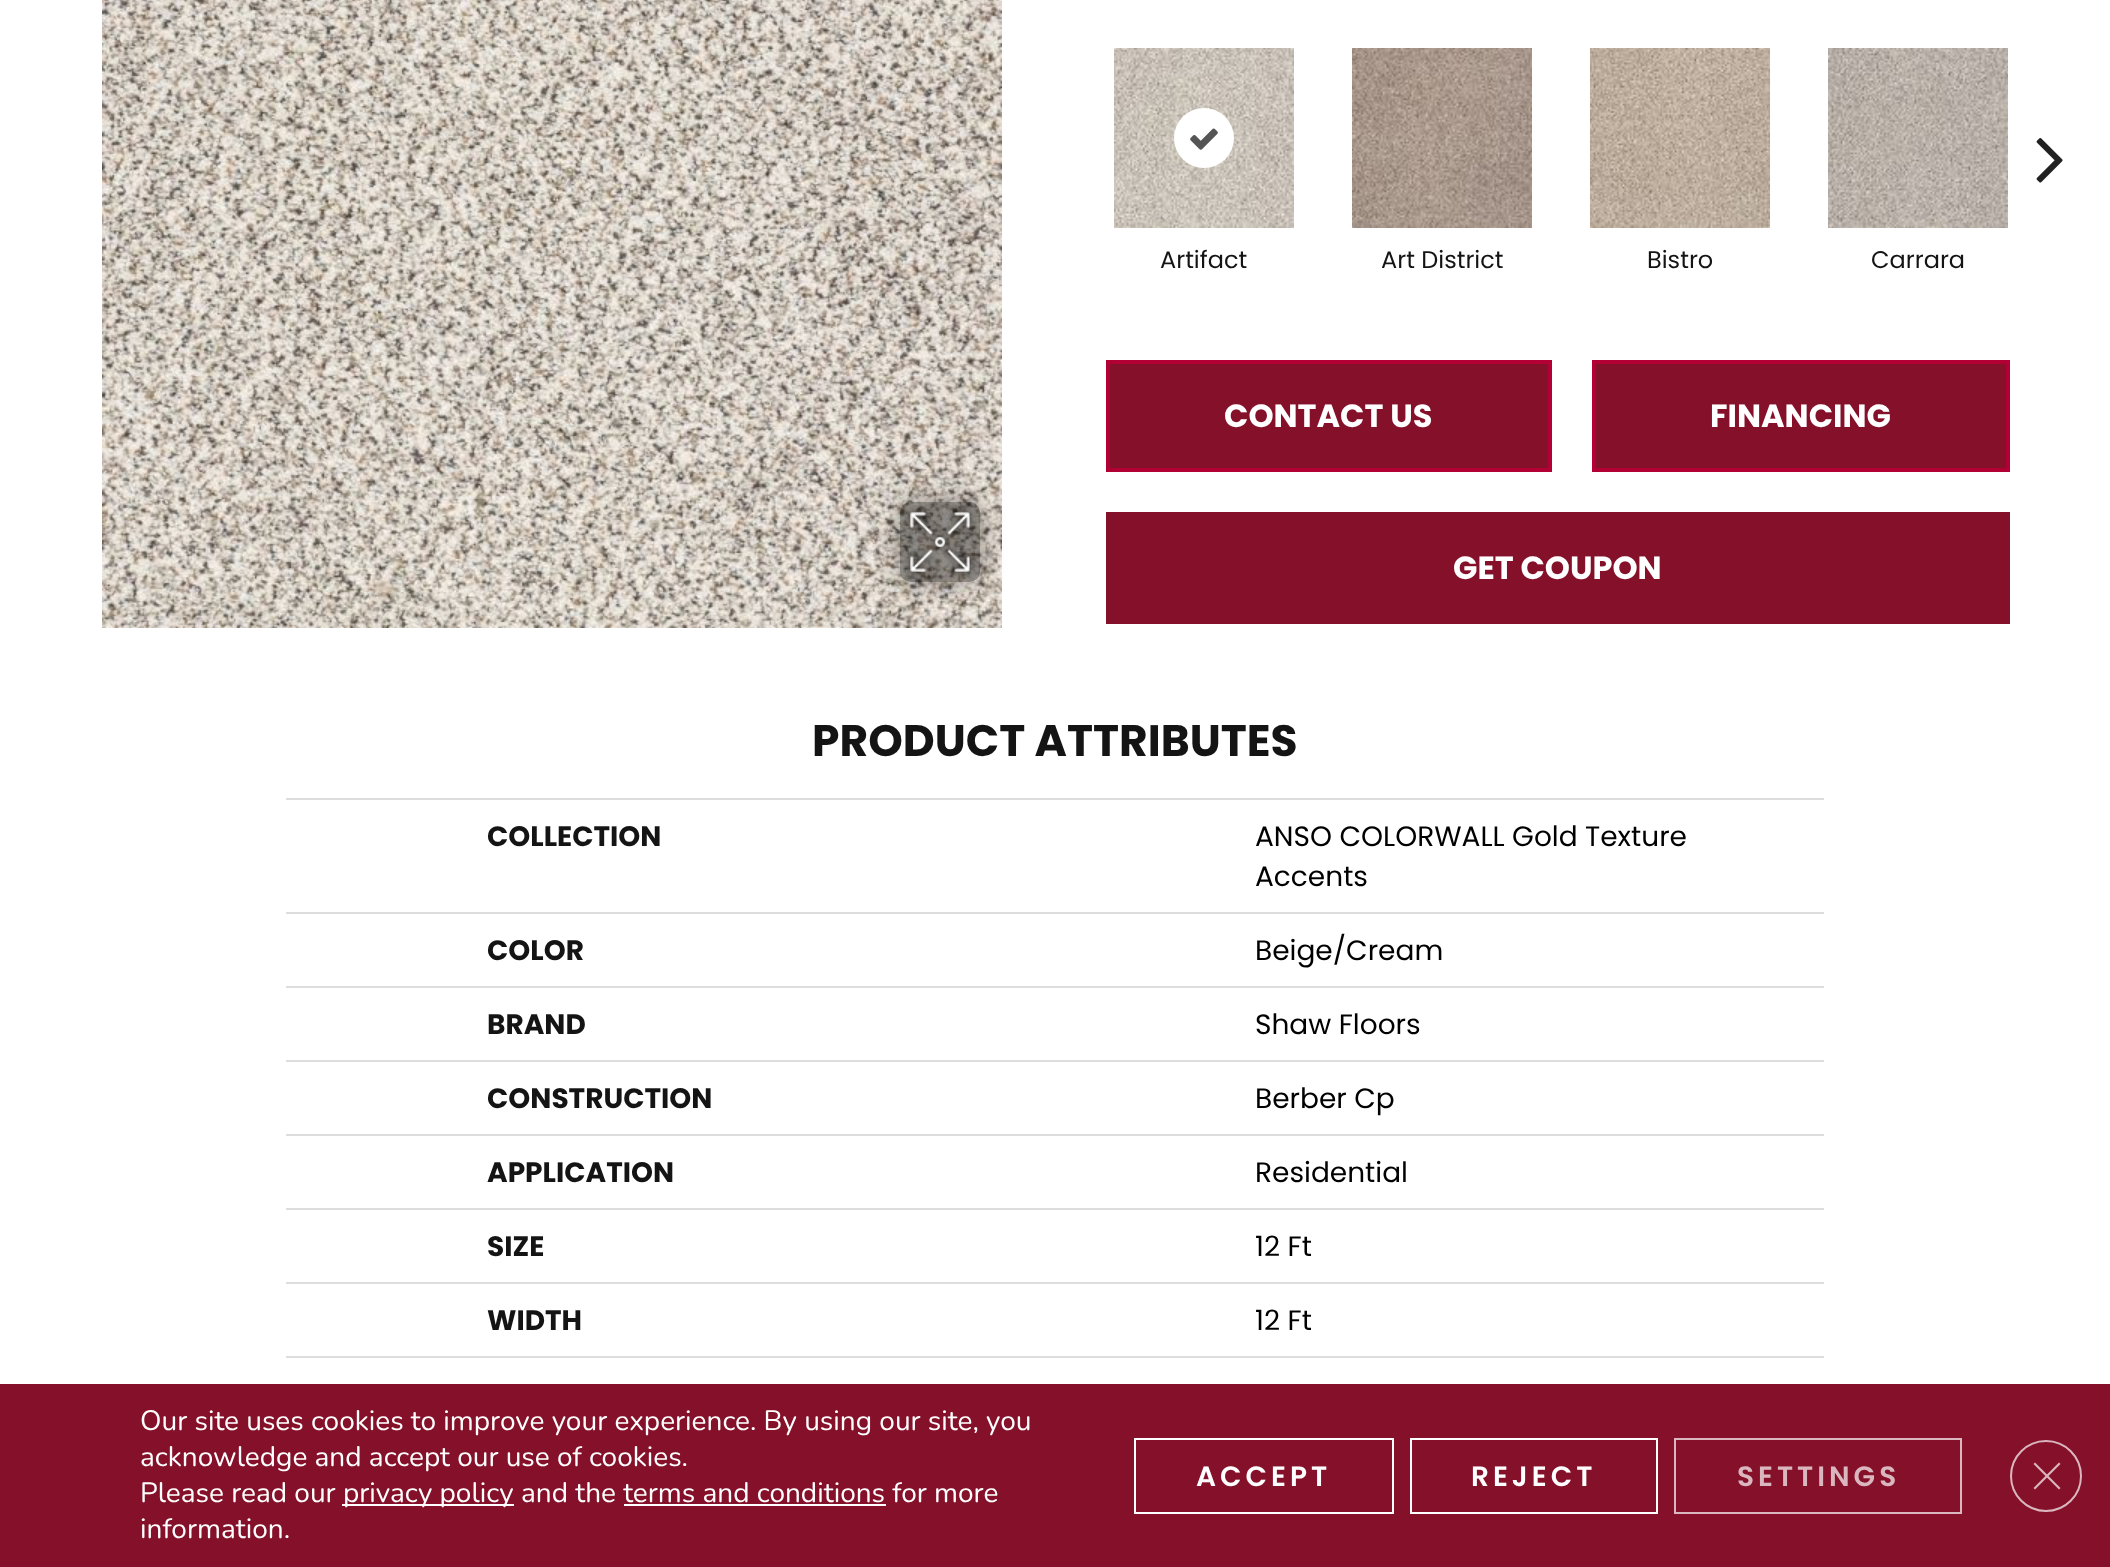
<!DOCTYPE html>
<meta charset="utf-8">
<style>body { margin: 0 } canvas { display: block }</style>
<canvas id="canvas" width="2110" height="1567"></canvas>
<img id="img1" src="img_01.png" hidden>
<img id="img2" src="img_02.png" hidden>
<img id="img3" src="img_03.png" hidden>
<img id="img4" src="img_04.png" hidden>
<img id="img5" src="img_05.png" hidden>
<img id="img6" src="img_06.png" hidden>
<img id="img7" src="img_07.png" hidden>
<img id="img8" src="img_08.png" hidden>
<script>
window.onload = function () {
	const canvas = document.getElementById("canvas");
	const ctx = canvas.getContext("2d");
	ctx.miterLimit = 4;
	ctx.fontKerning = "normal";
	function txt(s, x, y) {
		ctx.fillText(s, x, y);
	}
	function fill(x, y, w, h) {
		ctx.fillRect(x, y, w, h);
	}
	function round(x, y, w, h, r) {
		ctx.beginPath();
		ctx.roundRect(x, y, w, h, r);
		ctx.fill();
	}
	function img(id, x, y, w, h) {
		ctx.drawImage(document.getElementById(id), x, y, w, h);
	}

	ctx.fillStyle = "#FFFFFF";
	fill(0, 0, 2110, 1567);
	img("img1", 102, 0, 900, 628);
	ctx.save();
	ctx.beginPath();
	ctx.moveTo(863, 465);
	ctx.lineTo(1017, 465);
	ctx.lineTo(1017, 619);
	ctx.lineTo(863, 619);
	ctx.closePath();
	ctx.moveTo(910, 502);
	ctx.lineTo(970, 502);
	ctx.bezierCurveTo(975.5, 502, 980, 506.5, 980, 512);
	ctx.lineTo(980, 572);
	ctx.bezierCurveTo(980, 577.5, 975.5, 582, 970, 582);
	ctx.lineTo(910, 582);
	ctx.bezierCurveTo(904.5, 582, 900, 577.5, 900, 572);
	ctx.lineTo(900, 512);
	ctx.bezierCurveTo(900, 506.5, 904.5, 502, 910, 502);
	ctx.closePath();
	ctx.clip("evenodd");
	ctx.fillStyle = "rgba(0, 0, 0, 0.41)";
	ctx.filter = "blur(12px)";
	ctx.beginPath();
	ctx.roundRect(900, 502, 80, 80, 10);
	ctx.fill();
	ctx.filter = "none";
	ctx.restore();
	ctx.fillStyle = "rgba(0, 0, 0, 0.4)";
	round(900, 502, 80, 80, 10);
	img("img2", 903, 505, 74, 74);
	img("img3", 2036, 138, 27, 45);
	img("img4", 1114, 48, 180, 180);
	ctx.fillStyle = "#FFFFFF";
	ctx.beginPath();
	ctx.arc(1204, 138, 30, 0, Math.PI * 2);
	ctx.fill();
	img("img5", 1190, 128, 28, 22);
	img("img6", 1352, 48, 180, 180);
	img("img7", 1590, 48, 180, 180);
	img("img8", 1828, 48, 180, 180);
	ctx.fillStyle = "#851029";
	ctx.beginPath();
	ctx.rect(1108, 362, 442, 108);
	ctx.fill();
	ctx.strokeStyle = "#B20034";
	ctx.lineWidth = 4;
	ctx.stroke();
	ctx.beginPath();
	ctx.rect(1594, 362, 414, 108);
	ctx.fill();
	ctx.stroke();
	fill(1106, 512, 904, 112);
	ctx.fillStyle = "#DDDDDD";
	fill(286, 798, 1538, 2);
	fill(286, 912, 1538, 2);
	fill(286, 986, 1538, 2);
	fill(286, 1060, 1538, 2);
	fill(286, 1134, 1538, 2);
	fill(286, 1208, 1538, 2);
	fill(286, 1282, 1538, 2);
	fill(286, 1356, 1538, 2);
	ctx.fillStyle = "#851029";
	fill(0, 1384, 2110, 183);
	ctx.fillStyle = "#FFFFFF";
	fill(342, 1504, 172, 2);
	fill(624, 1504, 262, 2);
	ctx.strokeStyle = "#FFFFFF";
	ctx.lineWidth = 2;
	ctx.strokeRect(1135, 1439, 258, 74);
	ctx.strokeRect(1411, 1439, 246, 74);
	ctx.strokeStyle = "#DAB7BF";
	ctx.strokeRect(1675, 1439, 286, 74);
	ctx.beginPath();
	ctx.arc(2046, 1476, 35, 0, Math.PI * 2);
	ctx.stroke();
	ctx.fillStyle = "#DAB7BF";
	ctx.beginPath();
	ctx.moveTo(2059, 1462.5);
	ctx.lineTo(2060.5, 1464);
	ctx.lineTo(2035, 1489.5);
	ctx.lineTo(2033.5, 1488);
	ctx.closePath();
	ctx.fill();
	ctx.beginPath();
	ctx.moveTo(2033.5, 1464);
	ctx.lineTo(2035, 1462.5);
	ctx.lineTo(2060.5, 1488);
	ctx.lineTo(2059, 1489.5);
	ctx.closePath();
	ctx.fill();
	ctx.font = "24px Poppins";
	ctx.fillStyle = "#141414";
	txt("Artifact", 1160, 268);
	txt("Art District", 1381, 268);
	txt("Bistro", 1647, 268);
	txt("Carrara", 1871, 268);
	ctx.font = "bold 32px Poppins";
	ctx.fillStyle = "#FFFFFF";
	txt("CONTACT US", 1224, 427);
	txt("FINANCING", 1710, 427);
	txt("GET COUPON", 1453, 579);
	ctx.font = "bold 44px Poppins";
	ctx.fillStyle = "#141414";
	txt("PRODUCT ATTRIBUTES", 812, 756);
	ctx.font = "bold 28px Poppins";
	txt("COLLECTION", 487, 846);
	ctx.font = "28px Poppins";
	ctx.fillStyle = "#000000";
	txt("ANSO COLORWALL Gold Texture", 1255, 846);
	txt("Accents", 1255, 886);
	ctx.font = "bold 28px Poppins";
	ctx.fillStyle = "#141414";
	txt("COLOR", 487, 960);
	ctx.font = "28px Poppins";
	ctx.fillStyle = "#000000";
	txt("Beige/Cream", 1255, 960);
	ctx.font = "bold 28px Poppins";
	ctx.fillStyle = "#141414";
	txt("BRAND", 487, 1034);
	ctx.font = "28px Poppins";
	ctx.fillStyle = "#000000";
	txt("Shaw Floors", 1255, 1034);
	ctx.font = "bold 28px Poppins";
	ctx.fillStyle = "#141414";
	txt("CONSTRUCTION", 487, 1108);
	ctx.font = "28px Poppins";
	ctx.fillStyle = "#000000";
	txt("Berber Cp", 1255, 1108);
	ctx.font = "bold 28px Poppins";
	ctx.fillStyle = "#141414";
	txt("APPLICATION", 487, 1182);
	ctx.font = "28px Poppins";
	ctx.fillStyle = "#000000";
	txt("Residential", 1255, 1182);
	ctx.font = "bold 28px Poppins";
	ctx.fillStyle = "#141414";
	txt("SIZE", 487, 1256);
	ctx.font = "28px Poppins";
	ctx.fillStyle = "#000000";
	txt("12 Ft", 1255, 1256);
	ctx.font = "bold 28px Poppins";
	ctx.fillStyle = "#141414";
	txt("WIDTH", 487, 1330);
	ctx.font = "28px Poppins";
	ctx.fillStyle = "#000000";
	txt("12 Ft", 1255, 1330);
	ctx.font = "28px Nunito";
	ctx.fillStyle = "#FFFFFF";
	txt("Our site uses cookies to improve your experience. By using our site, you", 140, 1430);
	txt("acknowledge and accept our use of cookies.", 140, 1466);
	txt("Please read our", 140, 1502);
	txt("privacy policy and the terms and conditions for more", 343, 1502);
	txt("information.", 140, 1538);
	ctx.letterSpacing = "4px";
	ctx.font = "600 28px Poppins";
	txt("ACCEPT", 1196, 1486);
	txt("REJECT", 1471, 1486);
	ctx.fillStyle = "#DAB7BF";
	txt("SETTINGS", 1737, 1486);
};
</script>
